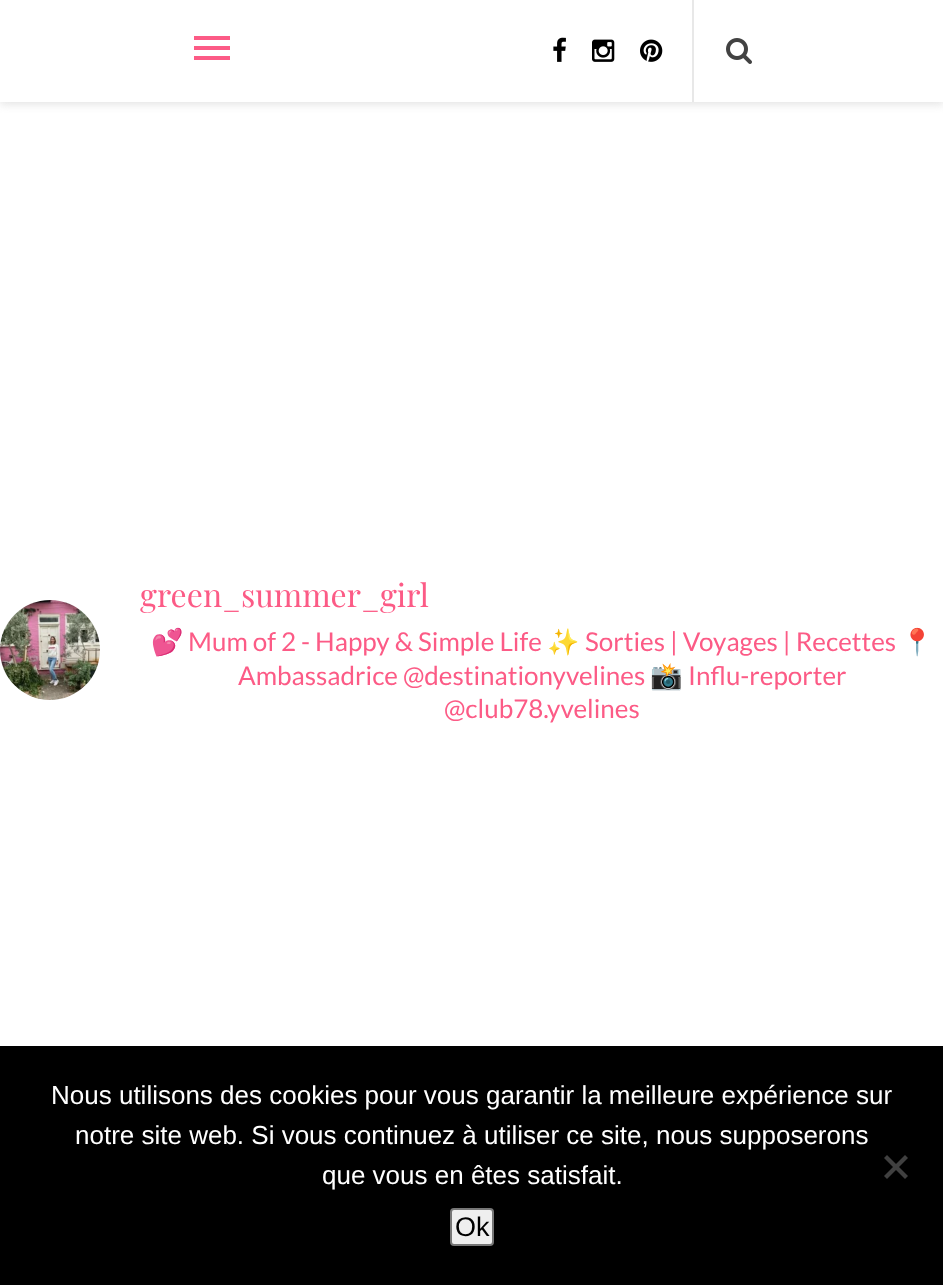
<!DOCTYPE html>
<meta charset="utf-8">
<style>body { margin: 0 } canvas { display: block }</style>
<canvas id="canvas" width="943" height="1285"></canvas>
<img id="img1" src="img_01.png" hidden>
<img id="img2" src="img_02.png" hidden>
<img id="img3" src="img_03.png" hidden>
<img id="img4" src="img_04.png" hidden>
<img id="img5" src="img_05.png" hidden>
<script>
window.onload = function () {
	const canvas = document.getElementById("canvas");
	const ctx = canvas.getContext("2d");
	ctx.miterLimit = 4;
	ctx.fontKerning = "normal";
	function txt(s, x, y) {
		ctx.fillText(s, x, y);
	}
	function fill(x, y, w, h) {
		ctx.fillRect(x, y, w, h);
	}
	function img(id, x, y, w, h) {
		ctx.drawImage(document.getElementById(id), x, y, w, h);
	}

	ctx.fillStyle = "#FFFFFF";
	fill(0, 0, 943, 1285);
	ctx.save();
	ctx.beginPath();
	ctx.rect(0, 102, 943, 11);
	ctx.clip();
	ctx.fillStyle = "rgba(190, 190, 190, 0.46)";
	ctx.filter = "blur(5px)";
	ctx.beginPath();
	ctx.rect(0, 2, 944, 102);
	ctx.fill();
	ctx.filter = "none";
	ctx.restore();
	ctx.fillStyle = "#FC5B86";
	fill(194, 36, 36, 4);
	fill(194, 46, 36, 4);
	fill(194, 56, 36, 4);
	img("img1", 553, 37, 13, 25);
	img("img2", 592, 39, 23, 23);
	img("img3", 640, 39, 23, 23);
	ctx.fillStyle = "#E8E8E8";
	fill(692, 0, 2, 102);
	img("img4", 726, 38, 26, 26);
	img("img5", 0, 600, 100, 100);
	ctx.fillStyle = "#000000";
	fill(0, 1046, 943, 239);
	ctx.fillStyle = "#404040";
	ctx.beginPath();
	ctx.moveTo(905, 1155);
	ctx.lineTo(908, 1158);
	ctx.lineTo(887, 1179);
	ctx.lineTo(884, 1176);
	ctx.closePath();
	ctx.fill();
	ctx.beginPath();
	ctx.moveTo(884, 1158);
	ctx.lineTo(887, 1155);
	ctx.lineTo(908, 1176);
	ctx.lineTo(905, 1179);
	ctx.closePath();
	ctx.fill();
	ctx.fillStyle = "#EFEFEF";
	ctx.beginPath();
	ctx.roundRect(451, 1209, 42, 36, 3);
	ctx.fill();
	ctx.strokeStyle = "#767676";
	ctx.lineWidth = 2;
	ctx.stroke();
	ctx.font = "32px Playfair Display";
	ctx.fillStyle = "#FC5B86";
	txt("green_summer_girl", 140, 607);
	ctx.font = "26px Noto Color Emoji";
	txt("💕", 151, 651);
	ctx.font = "26px Lato";
	txt("Mum of 2 - Happy & Simple Life", 188, 651);
	ctx.font = "26px Noto Color Emoji";
	txt("✨", 547, 651);
	ctx.font = "26px Lato";
	txt("Sorties | Voyages | Recettes", 585, 651);
	ctx.font = "26px Noto Color Emoji";
	txt("📍", 901, 651);
	ctx.font = "26px Lato";
	txt("Ambassadrice @destinationyvelines", 238, 685);
	ctx.font = "26px Noto Color Emoji";
	txt("📸", 650, 685);
	ctx.font = "26px Lato";
	txt("Influ-reporter", 688, 685);
	txt("@club78.yvelines", 444, 718);
	ctx.font = "26px Liberation Sans";
	ctx.fillStyle = "#FFFFFF";
	txt("Nous utilisons des cookies pour vous garantir la meilleure expérience sur", 51, 1104);
	txt("notre site web. Si vous continuez à utiliser ce site, nous supposerons", 75, 1144);
	txt("que vous en êtes satisfait.", 322, 1184);
	ctx.font = "27px Liberation Sans";
	ctx.fillStyle = "#000000";
	txt("Ok", 455, 1236);
};
</script>
